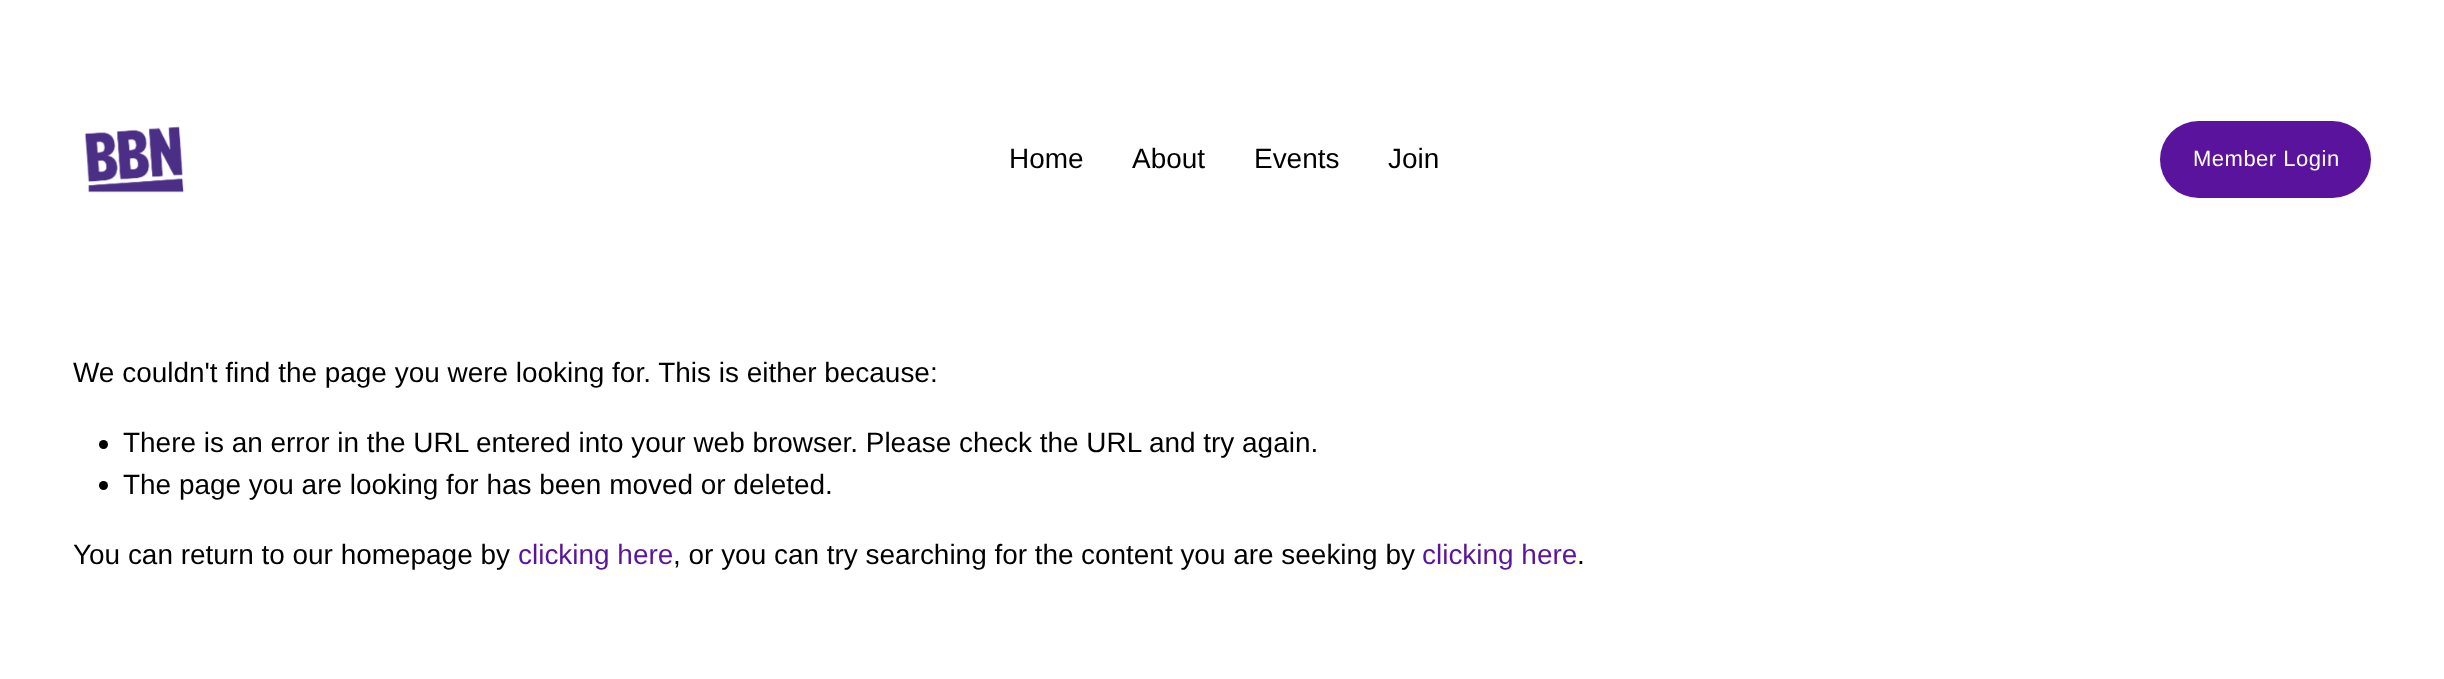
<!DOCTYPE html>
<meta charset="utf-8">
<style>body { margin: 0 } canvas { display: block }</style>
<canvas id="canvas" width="2444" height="679"></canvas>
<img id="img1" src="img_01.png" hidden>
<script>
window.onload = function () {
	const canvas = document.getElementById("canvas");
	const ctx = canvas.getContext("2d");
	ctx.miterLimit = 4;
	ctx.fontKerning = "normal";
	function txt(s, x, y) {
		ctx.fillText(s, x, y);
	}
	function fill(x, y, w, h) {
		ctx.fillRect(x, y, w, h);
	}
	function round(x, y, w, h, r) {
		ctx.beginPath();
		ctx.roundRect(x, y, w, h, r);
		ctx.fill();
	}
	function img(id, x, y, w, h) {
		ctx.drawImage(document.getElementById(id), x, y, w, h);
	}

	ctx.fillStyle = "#FFFFFF";
	fill(0, 0, 2444, 679);
	img("img1", 84, 126, 100, 67);
	ctx.fillStyle = "#59139D";
	round(2160, 121, 211, 77, 38.5);
	ctx.fillStyle = "#000000";
	ctx.beginPath();
	ctx.arc(103.5, 444.5, 4.5, 0, Math.PI * 2);
	ctx.fill();
	ctx.beginPath();
	ctx.arc(103.5, 485.5, 4.5, 0, Math.PI * 2);
	ctx.fill();
	ctx.font = "27.95px Liberation Sans";
	txt("Home", 1009, 168);
	txt("About", 1132, 168);
	txt("Events", 1254, 168);
	txt("Join", 1388, 168);
	ctx.letterSpacing = "0.5px";
	ctx.font = "22px Liberation Sans";
	ctx.fillStyle = "#FFFFFF";
	txt("Member Login", 2193, 166);
	ctx.letterSpacing = "0px";
	ctx.font = "27.95px Liberation Sans";
	ctx.fillStyle = "#000000";
	txt("We couldn't find the page you were looking for. This is either because:", 73, 382);
	txt("There is an error in the URL entered into your web browser. Please check the URL and try again.", 123, 452);
	txt("The page you are looking for has been moved or deleted.", 123, 494);
	txt("You can return to our homepage by", 73, 564);
	ctx.fillStyle = "#59139D";
	txt("clicking here", 518, 564);
	ctx.fillStyle = "#000000";
	txt(", or you can try searching for the", 673, 564);
	txt("content you are seeking by", 1081, 564);
	ctx.fillStyle = "#59139D";
	txt("clicking here", 1422, 564);
	ctx.fillStyle = "#000000";
	txt(".", 1577, 564);
};
</script>
